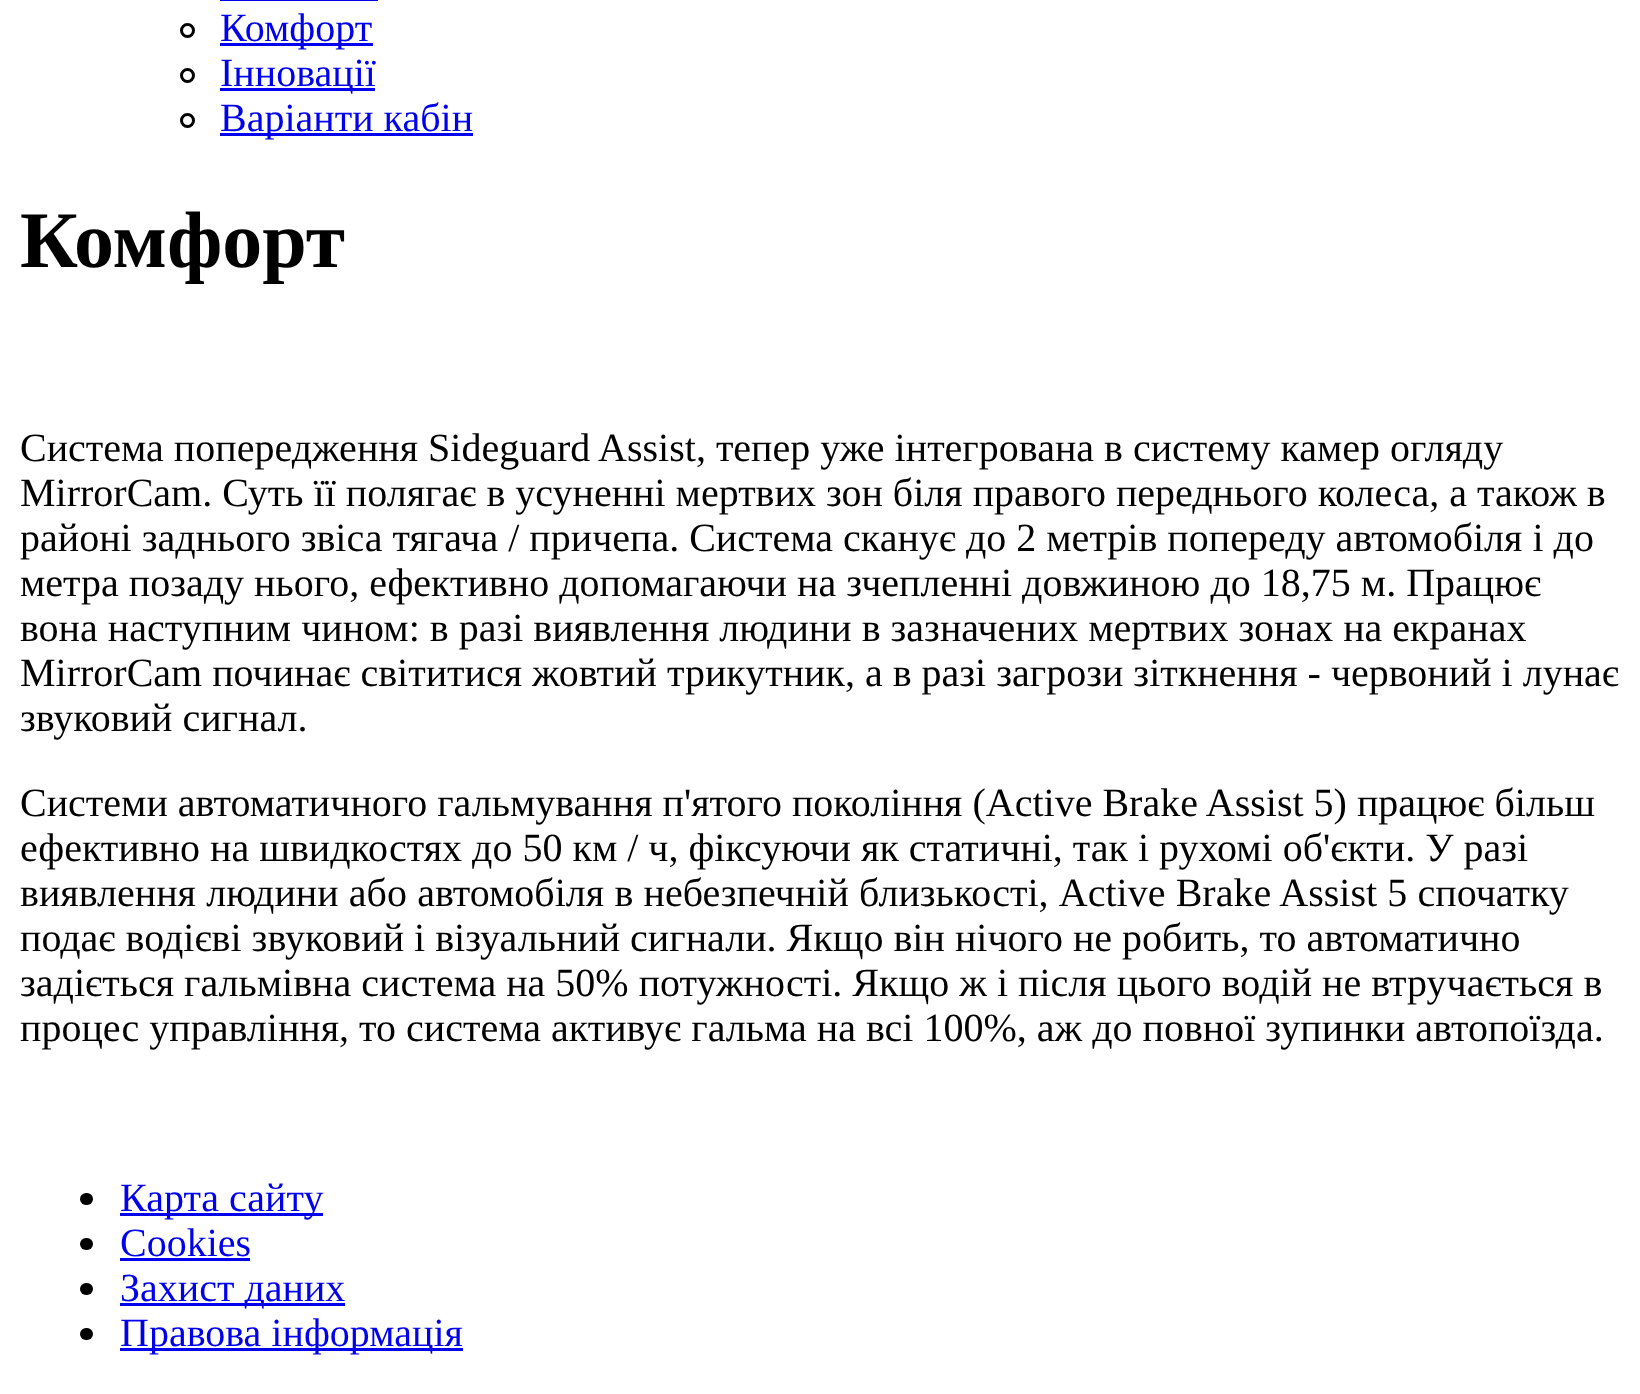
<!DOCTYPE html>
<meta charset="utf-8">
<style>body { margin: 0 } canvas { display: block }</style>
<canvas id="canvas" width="1640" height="1394"></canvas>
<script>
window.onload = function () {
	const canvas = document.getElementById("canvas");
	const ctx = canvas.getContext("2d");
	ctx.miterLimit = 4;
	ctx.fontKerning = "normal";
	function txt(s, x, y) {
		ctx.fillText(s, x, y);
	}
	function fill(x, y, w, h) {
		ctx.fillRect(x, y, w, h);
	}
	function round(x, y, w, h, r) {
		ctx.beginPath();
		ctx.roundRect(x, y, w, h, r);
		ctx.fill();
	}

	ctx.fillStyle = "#FFFFFF";
	fill(0, 0, 1640, 1394);
	ctx.fillStyle = "#0000EE";
	fill(220, 0, 158, 1);
	ctx.beginPath();
	ctx.arc(187.5, 30.5, 6, 0, Math.PI * 2);
	ctx.strokeStyle = "#000000";
	ctx.lineWidth = 3;
	ctx.stroke();
	fill(220, 43, 153, 3);
	ctx.beginPath();
	ctx.arc(187.5, 75.5, 6, 0, Math.PI * 2);
	ctx.stroke();
	fill(220, 88, 155, 3);
	ctx.beginPath();
	ctx.arc(187.5, 120.5, 6, 0, Math.PI * 2);
	ctx.stroke();
	fill(220, 133, 253, 3);
	ctx.fillStyle = "#000000";
	round(80, 1193, 13, 12, 6);
	ctx.fillStyle = "#0000EE";
	fill(120, 1213, 203, 3);
	ctx.fillStyle = "#000000";
	round(80, 1238, 13, 12, 6);
	ctx.fillStyle = "#0000EE";
	fill(120, 1258, 130, 3);
	ctx.fillStyle = "#000000";
	round(80, 1283, 13, 12, 6);
	ctx.fillStyle = "#0000EE";
	fill(120, 1303, 225, 3);
	ctx.fillStyle = "#000000";
	round(80, 1328, 13, 12, 6);
	ctx.fillStyle = "#0000EE";
	fill(120, 1348, 343, 3);
	ctx.font = "40px Liberation Serif";
	txt("Комфорт", 220, 41);
	txt("Інновації", 220, 86);
	txt("Варіанти кабін", 220, 131);
	ctx.font = "bold 80px Liberation Serif";
	ctx.fillStyle = "#000000";
	txt("Комфорт", 20, 267);
	ctx.font = "40px Liberation Serif";
	txt("Система попередження Sideguard Assist, тепер уже інтегрована в систему камер огляду", 20, 461);
	txt("MirrorCam. Суть її полягає в усуненні мертвих зон біля правого переднього колеса, а також в", 20, 506);
	txt("районі заднього звіса тягача / причепа. Система сканує до 2 метрів попереду автомобіля і до", 20, 551);
	txt("метра позаду нього, ефективно допомагаючи на зчепленні довжиною до 18,75 м. Працює", 20, 596);
	txt("вона наступним чином: в разі виявлення людини в зазначених мертвих зонах на екранах", 20, 641);
	txt("MirrorCam починає світитися жовтий трикутник, а в разі загрози зіткнення - червоний і лунає", 20, 686);
	txt("звуковий сигнал.", 20, 731);
	txt("Системи автоматичного гальмування п'ятого покоління (Active Brake Assist 5) працює більш", 20, 816);
	txt("ефективно на швидкостях до 50 км / ч, фіксуючи як статичні, так і рухомі об'єкти. У разі", 20, 861);
	ctx.wordSpacing = "0.25px";
	txt("виявлення людини або автомобіля в небезпечній близькості, Active Brake Assist 5 спочатку", 20, 906);
	ctx.wordSpacing = "0px";
	txt("подає водієві звуковий і візуальний сигнали. Якщо він нічого не робить, то автоматично", 20, 951);
	txt("задіється гальмівна система на 50% потужності. Якщо ж і після цього водій не втручається в", 20, 996);
	txt("процес управління, то система активує гальма на всі 100%, аж до повної зупинки автопоїзда.", 20, 1041);
	ctx.fillStyle = "#0000EE";
	txt("Карта сайту", 120, 1211);
	txt("Cookies", 120, 1256);
	txt("Захист даних", 120, 1301);
	txt("Правова інформація", 120, 1346);
};
</script>
